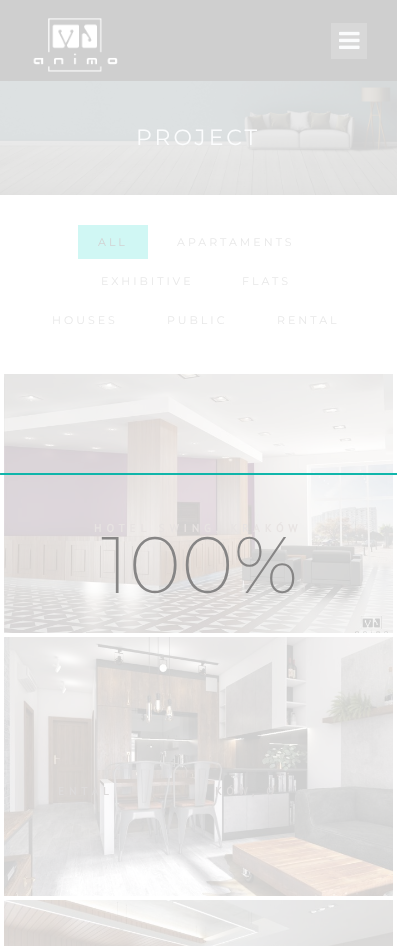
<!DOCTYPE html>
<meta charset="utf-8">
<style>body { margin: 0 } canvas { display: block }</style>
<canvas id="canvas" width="397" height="946"></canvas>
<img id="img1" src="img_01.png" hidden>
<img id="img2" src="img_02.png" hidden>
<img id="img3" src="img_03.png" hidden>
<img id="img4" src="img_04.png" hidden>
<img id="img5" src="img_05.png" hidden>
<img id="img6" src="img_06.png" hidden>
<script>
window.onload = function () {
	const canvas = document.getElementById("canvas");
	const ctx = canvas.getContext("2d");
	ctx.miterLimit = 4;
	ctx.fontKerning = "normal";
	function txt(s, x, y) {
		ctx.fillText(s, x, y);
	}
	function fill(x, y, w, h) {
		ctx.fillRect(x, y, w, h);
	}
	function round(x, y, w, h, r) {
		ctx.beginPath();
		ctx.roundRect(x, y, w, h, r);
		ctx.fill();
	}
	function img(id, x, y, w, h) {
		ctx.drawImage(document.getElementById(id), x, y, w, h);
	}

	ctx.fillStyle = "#CFCFCF";
	fill(0, 0, 397, 946);
	img("img1", 33, 18, 85, 54);
	ctx.fillStyle = "#D8D8D8";
	fill(331, 23, 36, 36);
	img("img2", 339, 31, 21, 18);
	img("img3", 0, 81, 397, 114);
	ctx.fillStyle = "#FFFFFF";
	fill(0, 195, 397, 751);
	ctx.fillStyle = "#D0F7F4";
	fill(78, 225, 70, 34);
	img("img4", 4, 374, 389, 259);
	img("img5", 4, 637, 389, 259);
	img("img6", 4, 900, 389, 46);
	ctx.fillStyle = "rgba(17, 17, 17, 0.81)";
	round(0, 473, 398, 2, 1);
	ctx.fillStyle = "rgba(6, 211, 197, 0.81)";
	round(0, 473, 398, 2, 1);
	ctx.letterSpacing = "3px";
	ctx.font = "22px Montserrat";
	ctx.fillStyle = "#FBFCFD";
	txt("PROJECT", 136, 145);
	ctx.font = "11px Montserrat";
	ctx.fillStyle = "#D2D2D2";
	txt("ALL", 98, 246);
	ctx.fillStyle = "#E8E8E8";
	txt("APARTAMENTS", 177, 246);
	txt("EXHIBITIVE", 101, 285);
	txt("FLATS", 242, 285);
	txt("HOUSES", 52, 324);
	txt("PUBLIC", 167, 324);
	txt("RENTAL", 277, 324);
	ctx.letterSpacing = "5px";
	ctx.font = "bold 11px PT Sans";
	ctx.fillStyle = "#E7E3E2";
	txt("HOTEL SWING, KRAKÓW", 94, 532);
	ctx.fillStyle = "#DDDBDB";
	txt("ENTAL", 58, 795);
	txt("KÓW, O", 215, 795);
	ctx.letterSpacing = "0px";
	ctx.font = "100 80px Montserrat";
	ctx.fillStyle = "#868585";
	txt("100%", 101, 593);
};
</script>
